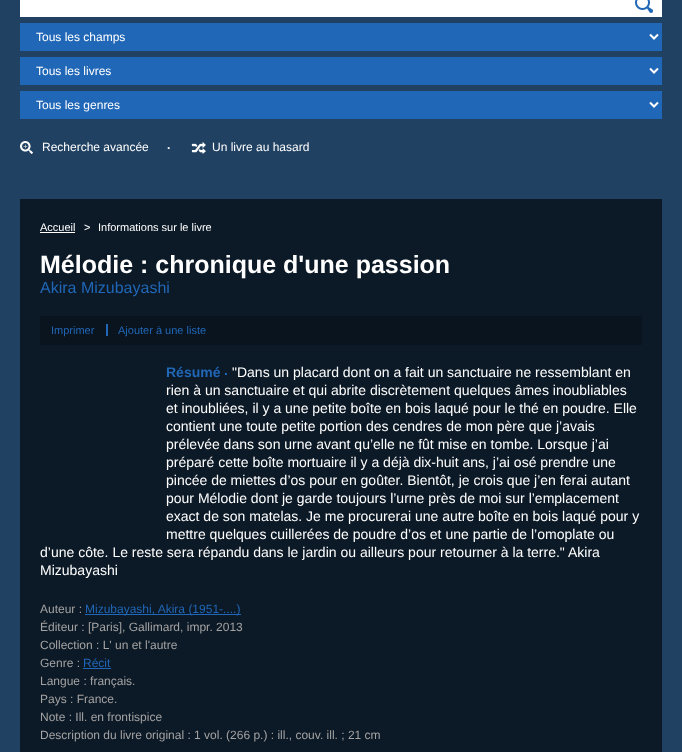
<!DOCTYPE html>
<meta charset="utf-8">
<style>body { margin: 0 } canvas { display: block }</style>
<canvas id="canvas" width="682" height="752"></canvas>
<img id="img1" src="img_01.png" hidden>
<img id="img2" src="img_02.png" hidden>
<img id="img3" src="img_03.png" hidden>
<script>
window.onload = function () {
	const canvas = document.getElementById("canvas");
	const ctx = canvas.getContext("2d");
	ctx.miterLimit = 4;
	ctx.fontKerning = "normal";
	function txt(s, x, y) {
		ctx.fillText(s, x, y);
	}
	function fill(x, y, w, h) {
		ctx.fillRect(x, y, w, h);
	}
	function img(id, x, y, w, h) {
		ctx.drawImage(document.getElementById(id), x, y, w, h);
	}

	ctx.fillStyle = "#204162";
	fill(0, 0, 682, 752);
	ctx.fillStyle = "#FFFFFF";
	fill(20, 0, 642, 17);
	img("img1", 635, 0, 18, 13);
	ctx.fillStyle = "#2067B7";
	fill(20, 23, 642, 28);
	ctx.beginPath();
	ctx.moveTo(650, 34.5);
	ctx.lineTo(654, 38.5);
	ctx.lineTo(658, 34.5);
	ctx.strokeStyle = "#FFFFFF";
	ctx.lineWidth = 2;
	ctx.stroke();
	fill(20, 57, 642, 28);
	ctx.beginPath();
	ctx.moveTo(650, 68.5);
	ctx.lineTo(654, 72.5);
	ctx.lineTo(658, 68.5);
	ctx.stroke();
	fill(20, 91, 642, 28);
	ctx.beginPath();
	ctx.moveTo(650, 102.5);
	ctx.lineTo(654, 106.5);
	ctx.lineTo(658, 102.5);
	ctx.stroke();
	img("img2", 20, 141, 13, 13);
	img("img3", 191, 142, 15, 12);
	ctx.fillStyle = "#0C1926";
	fill(20, 199, 642, 553);
	ctx.fillStyle = "#FFFFFF";
	fill(40, 232, 35, 1);
	ctx.fillStyle = "#0A141F";
	fill(40, 316, 602, 29);
	ctx.fillStyle = "#2067B7";
	fill(106, 324, 2, 12);
	fill(85, 614, 156, 1);
	fill(83, 668, 28, 1);
	ctx.font = "12px Liberation Sans";
	ctx.fillStyle = "#FFFFFF";
	txt("Tous les champs", 36, 41);
	txt("Tous les livres", 36, 75);
	txt("Tous les genres", 36, 109);
	txt("Recherche avancée", 42, 151);
	ctx.font = "bold 12px Liberation Sans";
	txt(".", 167, 149);
	ctx.font = "12px Liberation Sans";
	txt("Un livre au hasard", 212, 151);
	ctx.font = "11px Liberation Sans";
	txt("Accueil", 40, 231);
	txt(">", 84, 231);
	txt("Informations sur le livre", 98, 231);
	ctx.font = "bold 25px Liberation Sans";
	txt("Mélodie : chronique d'une passion", 40, 273);
	ctx.font = "16px Liberation Sans";
	ctx.fillStyle = "#2067B7";
	txt("Akira Mizubayashi", 40, 293);
	ctx.font = "11px Liberation Sans";
	txt("Imprimer", 51, 334);
	txt("Ajouter à une liste", 118, 334);
	ctx.font = "14px Liberation Sans";
	ctx.fillStyle = "#FFFFFF";
	txt("\"Dans un placard dont on a fait un sanctuaire ne ressemblant en", 232, 377);
	txt("rien à un sanctuaire et qui abrite discrètement quelques âmes inoubliables", 166, 395);
	txt("et inoubliées, il y a une petite boîte en bois laqué pour le thé en poudre. Elle", 166, 413);
	txt("contient une toute petite portion des cendres de mon père que j’avais", 166, 431);
	txt("prélevée dans son urne avant qu’elle ne fût mise en tombe. Lorsque j’ai", 166, 449);
	txt("préparé cette boîte mortuaire il y a déjà dix-huit ans, j’ai osé prendre une", 166, 467);
	txt("pincée de miettes d’os pour en goûter. Bientôt, je crois que j’en ferai autant", 166, 485);
	txt("pour Mélodie dont je garde toujours l’urne près de moi sur l’emplacement", 166, 503);
	txt("exact de son matelas. Je me procurerai une autre boîte en bois laqué pour y", 166, 521);
	txt("mettre quelques cuillerées de poudre d’os et une partie de l’omoplate ou", 166, 539);
	txt("d’une côte. Le reste sera répandu dans le jardin ou ailleurs pour retourner à la terre.\" Akira", 40, 557);
	txt("Mizubayashi", 40, 575);
	ctx.font = "bold 14px Liberation Sans";
	ctx.fillStyle = "#2067B7";
	txt("Résumé", 166, 377);
	txt(".", 224, 375);
	ctx.font = "12px Liberation Sans";
	ctx.fillStyle = "#A4A3A3";
	txt("Auteur :", 40, 613);
	ctx.fillStyle = "#2067B7";
	txt("Mizubayashi, Akira (1951-....)", 85, 613);
	ctx.fillStyle = "#A4A3A3";
	txt("Éditeur : [Paris], Gallimard, impr. 2013", 40, 631);
	txt("Collection : L' un et l'autre", 40, 649);
	txt("Genre :", 40, 667);
	ctx.fillStyle = "#2067B7";
	txt("Récit", 83, 667);
	ctx.fillStyle = "#A4A3A3";
	txt("Langue : français.", 40, 685);
	txt("Pays : France.", 40, 703);
	txt("Note : Ill. en frontispice", 40, 721);
	txt("Description du livre original : 1 vol. (266 p.) : ill., couv. ill. ; 21 cm", 40, 739);
};
</script>
